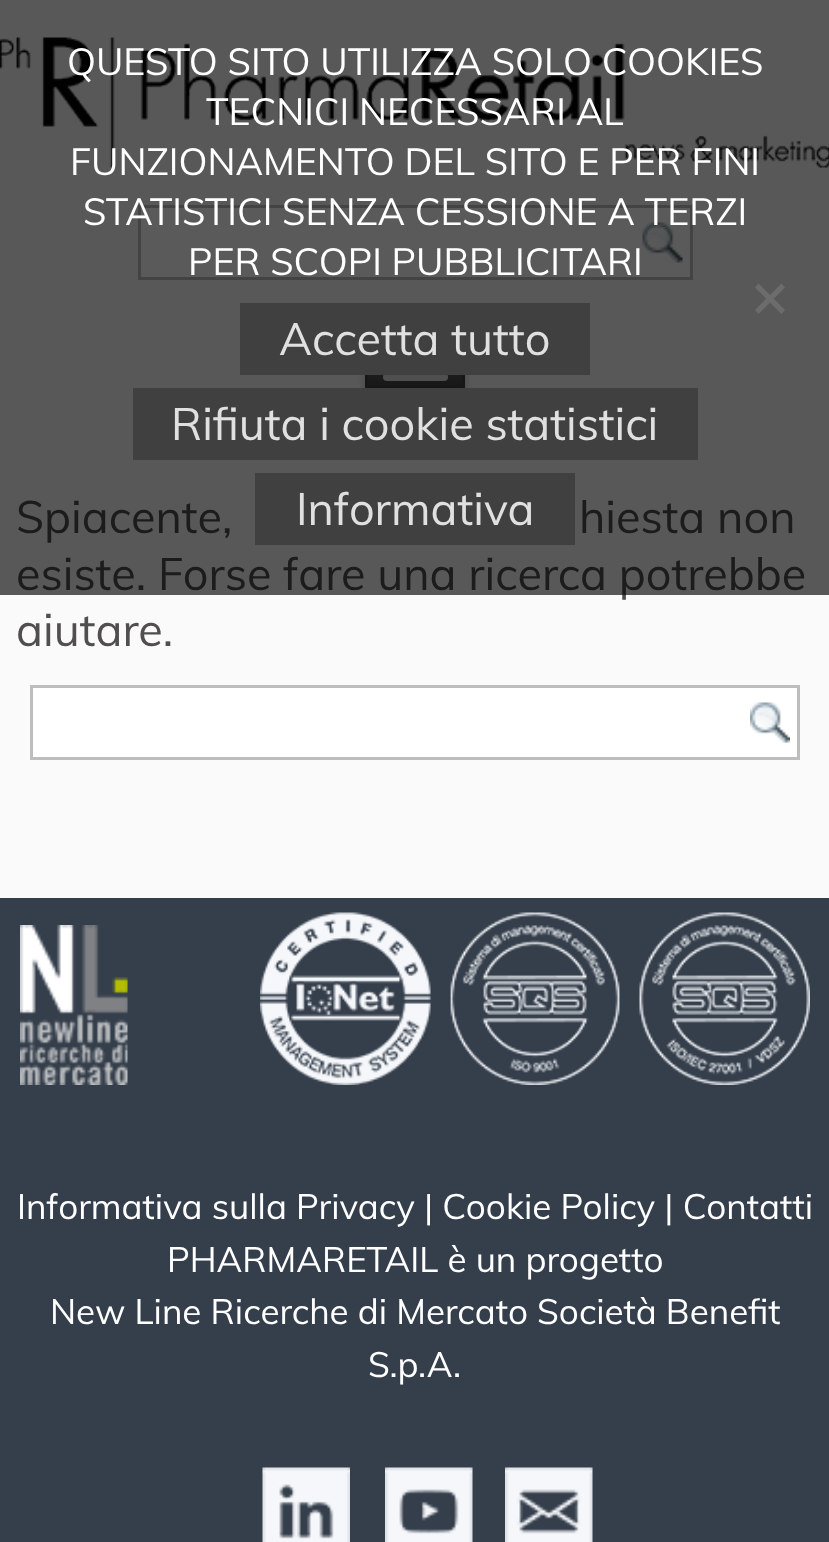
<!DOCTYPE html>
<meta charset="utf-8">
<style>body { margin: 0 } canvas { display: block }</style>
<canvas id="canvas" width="829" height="1542"></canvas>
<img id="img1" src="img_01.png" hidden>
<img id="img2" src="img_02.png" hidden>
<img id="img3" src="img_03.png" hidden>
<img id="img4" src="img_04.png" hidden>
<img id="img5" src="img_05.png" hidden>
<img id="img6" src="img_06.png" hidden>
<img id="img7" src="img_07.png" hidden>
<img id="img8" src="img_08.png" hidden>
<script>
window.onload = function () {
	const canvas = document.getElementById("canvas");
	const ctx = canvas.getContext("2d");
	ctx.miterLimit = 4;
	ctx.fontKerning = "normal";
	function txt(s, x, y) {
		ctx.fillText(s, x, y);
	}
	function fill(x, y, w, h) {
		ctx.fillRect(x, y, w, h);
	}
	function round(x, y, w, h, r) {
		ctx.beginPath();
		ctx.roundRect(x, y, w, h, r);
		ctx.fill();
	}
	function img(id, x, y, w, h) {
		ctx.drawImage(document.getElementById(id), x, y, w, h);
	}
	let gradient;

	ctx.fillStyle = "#FAFAFA";
	fill(0, 0, 829, 1542);
	img("img1", 0, 37, 829, 131);
	ctx.fillStyle = "#FFFFFF";
	ctx.beginPath();
	ctx.rect(139.5, 206.5, 552, 72);
	ctx.fill();
	ctx.strokeStyle = "#BDBDBD";
	ctx.lineWidth = 3;
	ctx.stroke();
	img("img2", 642, 222, 41, 41);
	ctx.fillStyle = "rgba(0, 0, 0, 0.2)";
	ctx.filter = "blur(4px)";
	ctx.beginPath();
	ctx.rect(365, 350, 100, 83);
	ctx.fill();
	ctx.filter = "none";
	gradient = ctx.createLinearGradient(415, 353, 415, 430);
	gradient.addColorStop(0, "#707070");
	gradient.addColorStop(1, "#000000");
	ctx.fillStyle = gradient;
	fill(368, 375, 94, 13);
	ctx.strokeStyle = "#404040";
	ctx.strokeRect(366.5, 351.5, 97, 80);
	ctx.fillStyle = "#E0E0E0";
	round(383, 373, 65, 8, 4);
	ctx.fillStyle = "#FFFFFF";
	ctx.beginPath();
	ctx.rect(31.5, 686.5, 767, 72);
	ctx.fill();
	ctx.strokeStyle = "#BDBDBD";
	ctx.stroke();
	img("img3", 750, 702, 40, 41);
	ctx.fillStyle = "#353F4C";
	fill(0, 898, 829, 644);
	img("img4", 20, 925, 108, 160);
	img("img5", 260, 912, 550, 173);
	img("img6", 262, 1467, 88, 75);
	img("img7", 385, 1467, 88, 75);
	img("img8", 505, 1467, 88, 75);
	ctx.font = "45px Muli";
	ctx.fillStyle = "#504E4E";
	txt("Spiacente,", 16, 533);
	txt("hiesta non", 579, 533);
	txt("esiste. Forse fare una ricerca potrebbe", 16, 590);
	ctx.fillStyle = "rgba(1, 1, 1, 0.65)";
	fill(0, 0, 829, 595);
	ctx.fillStyle = "#6C6C6C";
	ctx.beginPath();
	ctx.moveTo(781.5, 283.5);
	ctx.lineTo(785, 287.5);
	ctx.lineTo(758.5, 314);
	ctx.lineTo(755, 310);
	ctx.closePath();
	ctx.fill();
	ctx.beginPath();
	ctx.moveTo(755, 287.5);
	ctx.lineTo(758.5, 283.5);
	ctx.lineTo(785, 310);
	ctx.lineTo(781.5, 314);
	ctx.closePath();
	ctx.fill();
	ctx.fillStyle = "#404040";
	fill(255, 473, 320, 72);
	ctx.fillStyle = "#E0E0E0";
	txt("Informativa", 296, 525);
	ctx.fillStyle = "#404040";
	fill(133, 388, 565, 72);
	ctx.fillStyle = "#E0E0E0";
	txt("Rifiuta i cookie statistici", 171, 440);
	ctx.fillStyle = "#404040";
	fill(240, 303, 350, 72);
	ctx.fillStyle = "#E0E0E0";
	txt("Accetta tutto", 279, 355);
	ctx.font = "37.5px Muli";
	ctx.fillStyle = "#FFFFFF";
	txt("PER SCOPI PUBBLICITARI", 188, 275);
	txt("STATISTICI SENZA CESSIONE A TERZI", 83, 225);
	txt("FUNZIONAMENTO DEL SITO E PER FINI", 70, 175);
	txt("TECNICI NECESSARI AL", 206, 125);
	txt("QUESTO SITO UTILIZZA SOLO COOKIES", 67, 75);
	ctx.font = "45px Muli";
	ctx.fillStyle = "#504E4E";
	txt("aiutare.", 16, 646);
	ctx.font = "35px Muli";
	ctx.fillStyle = "#FFFFFF";
	txt("Informativa sulla Privacy | Cookie Policy | Contatti", 17, 1219);
	txt("PHARMARETAIL è un progetto", 167, 1272);
	txt("New Line Ricerche di Mercato Società Benefit", 50, 1324);
	txt("S.p.A.", 368, 1377);
};
</script>
